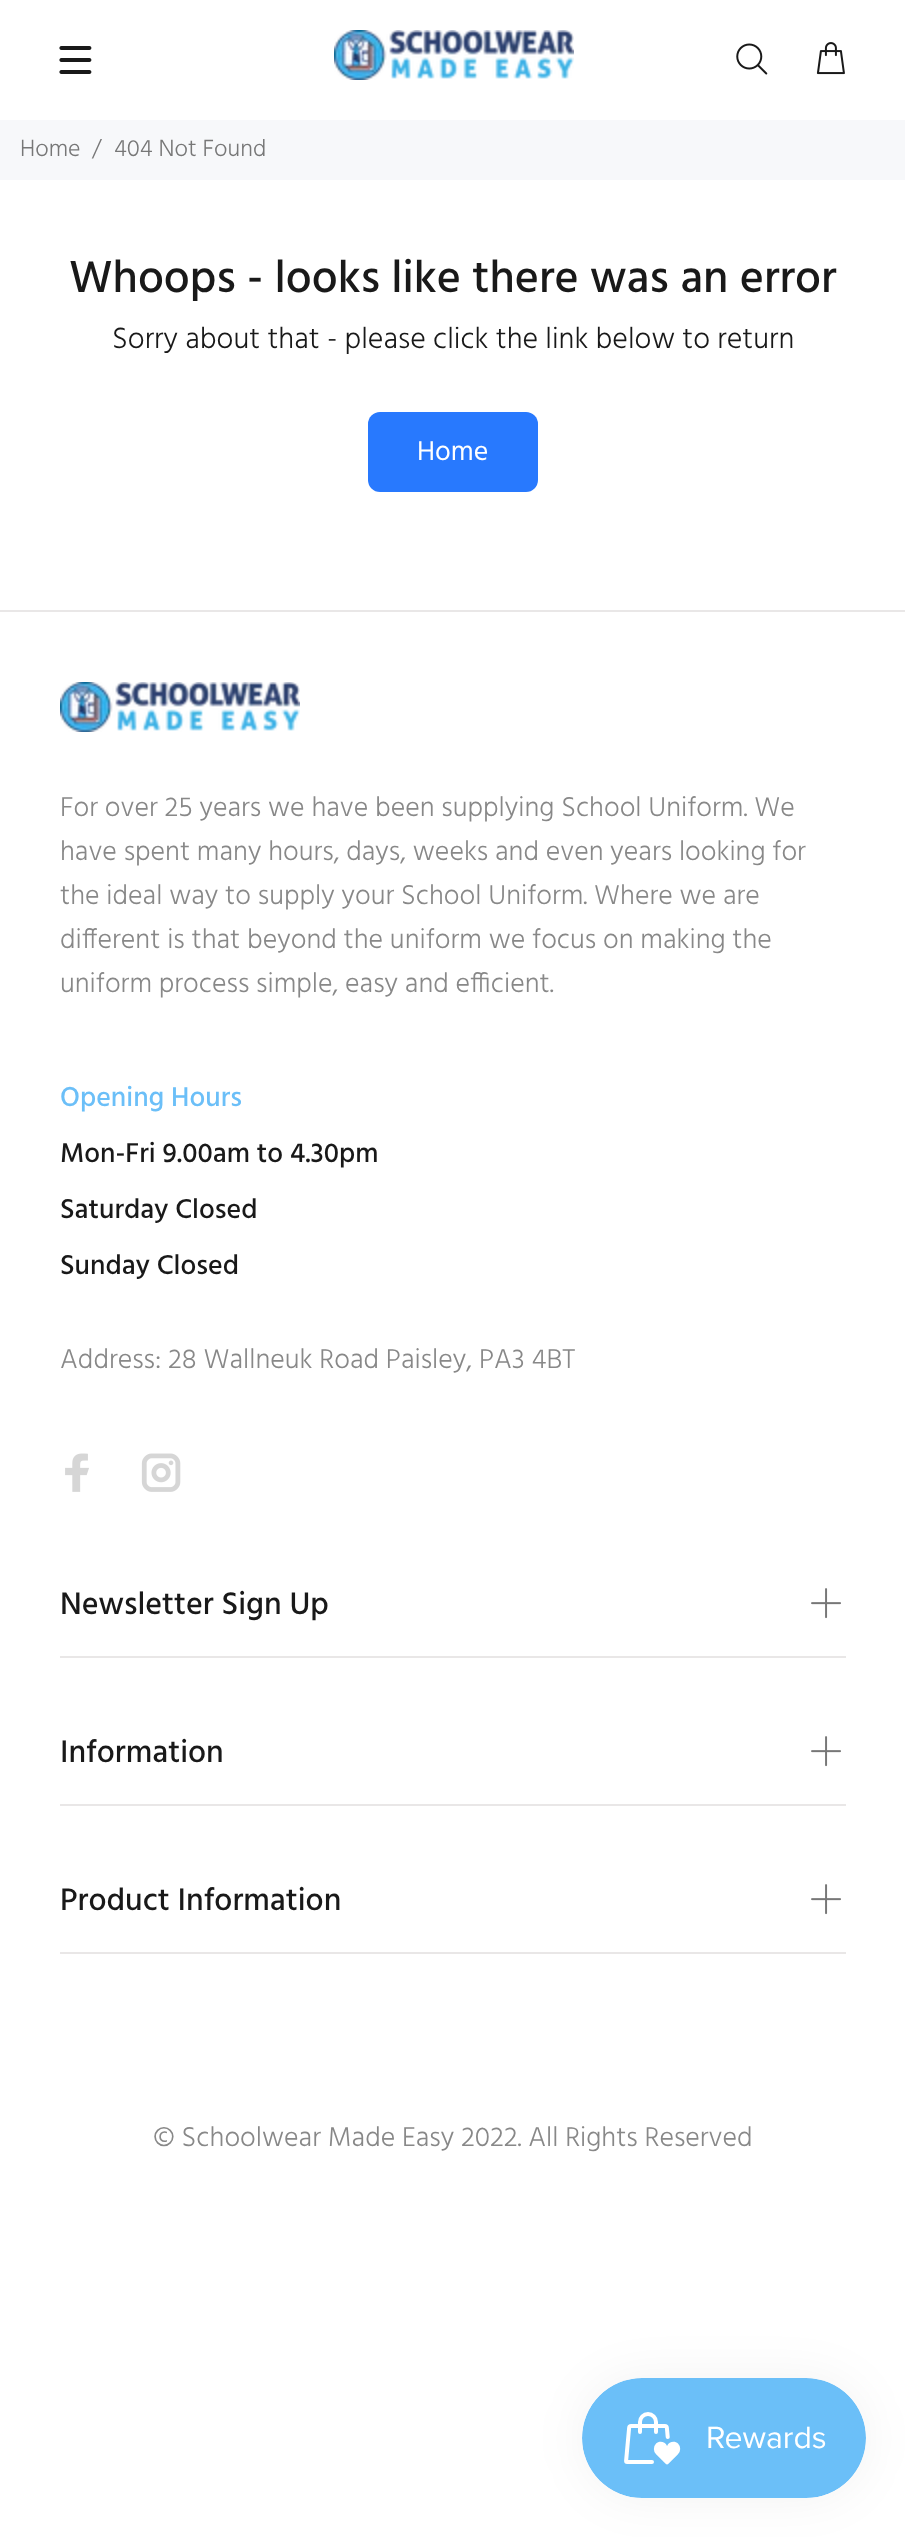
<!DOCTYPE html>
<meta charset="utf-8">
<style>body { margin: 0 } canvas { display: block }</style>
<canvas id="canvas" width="905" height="2537"></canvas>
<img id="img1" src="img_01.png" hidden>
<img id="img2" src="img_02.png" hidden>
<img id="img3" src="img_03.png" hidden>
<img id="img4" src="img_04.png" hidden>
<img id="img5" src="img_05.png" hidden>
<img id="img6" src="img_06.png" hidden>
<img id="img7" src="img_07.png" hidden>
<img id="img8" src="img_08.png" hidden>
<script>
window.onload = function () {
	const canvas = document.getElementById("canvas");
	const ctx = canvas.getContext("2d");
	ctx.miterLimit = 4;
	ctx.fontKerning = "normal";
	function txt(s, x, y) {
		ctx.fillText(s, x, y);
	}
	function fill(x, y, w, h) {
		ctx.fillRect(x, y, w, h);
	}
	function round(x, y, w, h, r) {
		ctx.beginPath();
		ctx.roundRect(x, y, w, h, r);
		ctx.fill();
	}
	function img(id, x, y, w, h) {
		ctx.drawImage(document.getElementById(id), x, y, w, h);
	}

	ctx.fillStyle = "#FFFFFF";
	fill(0, 0, 905, 2537);
	img("img1", 59, 46, 33, 28);
	img("img2", 334, 30, 240, 50);
	img("img3", 736, 43, 32, 32);
	img("img4", 816, 42, 29, 33);
	ctx.fillStyle = "#F7F8FA";
	fill(0, 120, 905, 60);
	ctx.fillStyle = "#2879FE";
	round(368, 412, 170, 80, 12);
	ctx.fillStyle = "#E9E7E7";
	fill(0, 610, 905, 2);
	img("img2", 60, 682, 240, 50);
	img("img5", 65, 1453, 24, 39);
	img("img6", 141, 1453, 40, 39);
	fill(60, 1656, 786, 2);
	img("img7", 811, 1588, 30, 31);
	fill(60, 1804, 786, 2);
	img("img7", 811, 1736, 30, 31);
	fill(60, 1952, 786, 2);
	img("img7", 811, 1884, 30, 31);
	ctx.fillStyle = "rgba(0, 0, 0, 0.05)";
	ctx.filter = "blur(25px)";
	ctx.beginPath();
	ctx.roundRect(582, 2378, 284, 120, 60);
	ctx.fill();
	ctx.filter = "none";
	img("img8", 582, 2378, 284, 120);
	ctx.font = "300 24px Hind";
	ctx.fillStyle = "#777777";
	txt("Home", 20, 156);
	txt("/", 92, 156);
	txt("404 Not Found", 114, 156);
	ctx.font = "500 46px Hind";
	ctx.fillStyle = "#191919";
	txt("Whoops - looks like there was an error", 69, 292);
	ctx.font = "300 30px Hind";
	txt("Sorry about that - please click the link below to return", 112, 348);
	ctx.font = "28px Hind";
	ctx.fillStyle = "#FFFFFF";
	txt("Home", 417, 460);
	ctx.font = "300 28px Hind";
	ctx.fillStyle = "#888888";
	txt("For over 25 years we have been supplying School Uniform. We", 60, 816);
	txt("have spent many hours, days, weeks and even years looking for", 60, 860);
	txt("the ideal way to supply your School Uniform. Where we are", 60, 904);
	txt("different is that beyond the uniform we focus on making the", 60, 948);
	txt("uniform process simple, easy and efficient.", 60, 992);
	ctx.font = "500 28px Hind";
	ctx.fillStyle = "#6BBFF8";
	txt("Opening Hours", 60, 1106);
	ctx.fillStyle = "#191919";
	txt("Mon-Fri 9.00am to 4.30pm", 60, 1162);
	txt("Saturday Closed", 60, 1218);
	txt("Sunday Closed", 60, 1274);
	ctx.font = "300 28px Hind";
	ctx.fillStyle = "#888888";
	txt("Address: 28 Wallneuk Road Paisley, PA3 4BT", 60, 1368);
	ctx.font = "500 32px Hind";
	ctx.fillStyle = "#191919";
	txt("Newsletter Sign Up", 60, 1614);
	txt("Information", 60, 1762);
	txt("Product Information", 60, 1910);
	ctx.font = "300 28px Hind";
	ctx.fillStyle = "#888888";
	txt("© Schoolwear Made Easy 2022. All Rights Reserved", 153, 2146);
};
</script>
